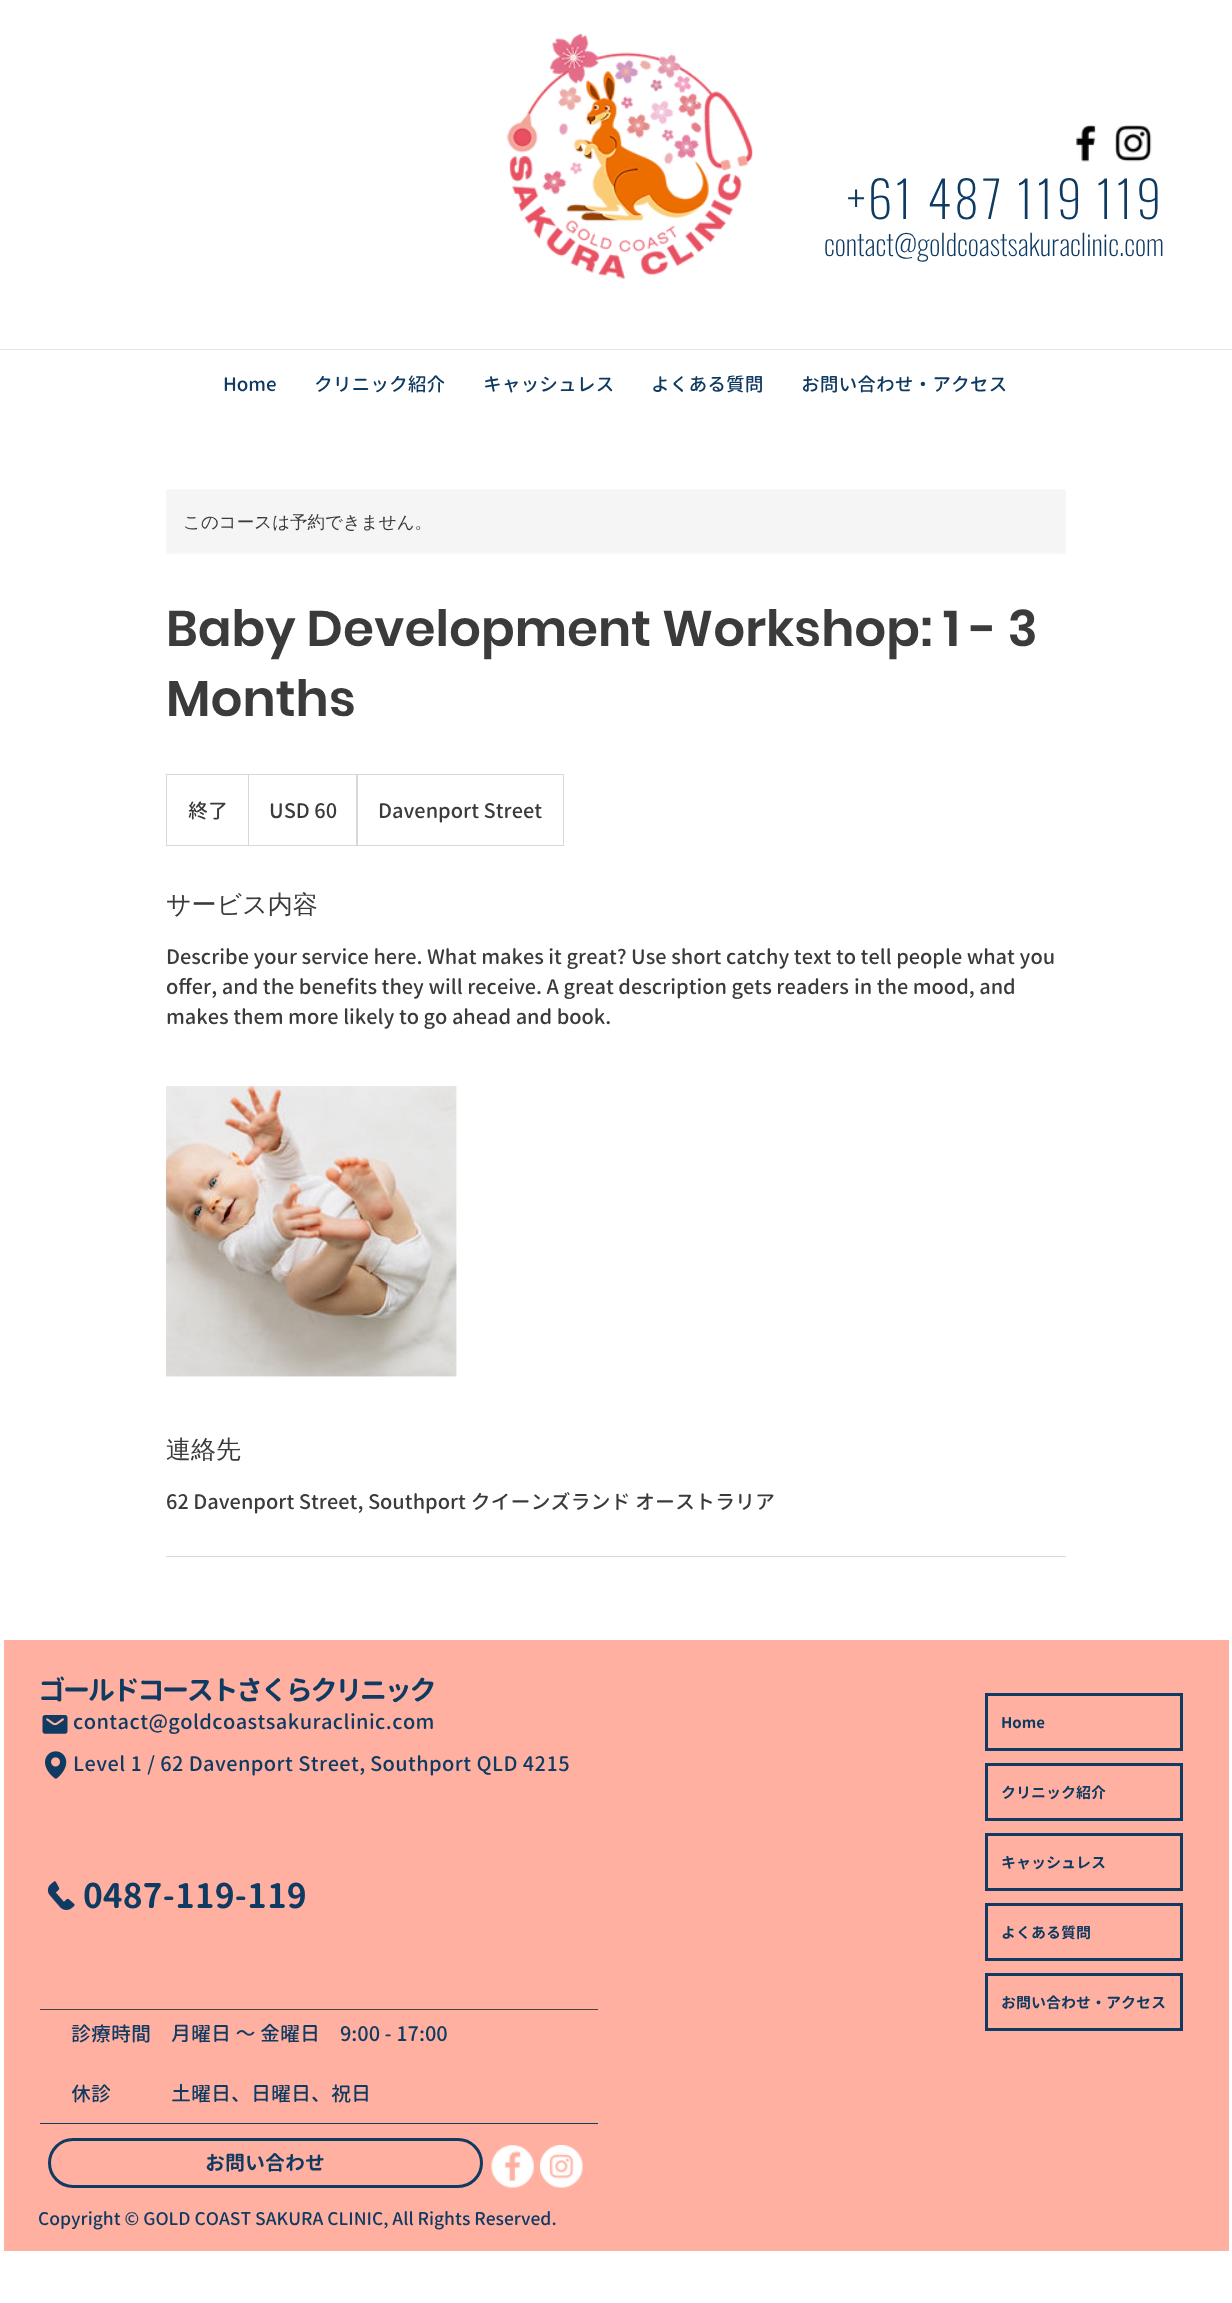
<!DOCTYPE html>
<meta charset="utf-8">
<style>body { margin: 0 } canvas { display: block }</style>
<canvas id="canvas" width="1232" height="2303"></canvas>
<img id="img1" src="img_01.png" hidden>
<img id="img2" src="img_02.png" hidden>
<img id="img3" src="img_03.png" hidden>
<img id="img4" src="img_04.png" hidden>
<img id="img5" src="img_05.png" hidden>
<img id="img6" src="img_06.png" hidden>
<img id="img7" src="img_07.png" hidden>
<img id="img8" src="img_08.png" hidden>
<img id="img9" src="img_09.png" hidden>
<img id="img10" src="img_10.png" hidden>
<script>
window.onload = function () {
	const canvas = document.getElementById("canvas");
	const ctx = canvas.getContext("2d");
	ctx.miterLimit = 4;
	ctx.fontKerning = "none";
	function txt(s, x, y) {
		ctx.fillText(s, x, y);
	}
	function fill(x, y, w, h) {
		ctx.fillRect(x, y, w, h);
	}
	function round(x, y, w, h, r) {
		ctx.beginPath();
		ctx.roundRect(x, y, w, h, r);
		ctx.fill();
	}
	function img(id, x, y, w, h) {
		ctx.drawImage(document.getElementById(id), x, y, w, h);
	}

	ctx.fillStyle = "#FFFFFF";
	fill(0, 0, 1232, 2303);
	img("img1", 506, 33, 247, 246);
	img("img2", 1076, 125, 20, 37);
	img("img3", 1115, 125, 37, 37);
	ctx.fillStyle = "#E4E4E4";
	fill(0, 349, 1232, 1);
	ctx.fillStyle = "#F5F5F5";
	round(166, 489, 900, 65, 2.5);
	ctx.beginPath();
	ctx.roundRect(166.5, 489.5, 899, 64, 2);
	ctx.strokeStyle = "rgba(255, 255, 255, 0.4)";
	ctx.stroke();
	ctx.strokeStyle = "#D8D8D8";
	ctx.strokeRect(166.5, 774.5, 397, 71);
	ctx.fillStyle = "#D8D8D8";
	ctx.beginPath();
	ctx.moveTo(248, 845);
	ctx.lineTo(248, 774);
	ctx.lineTo(249, 775);
	ctx.lineTo(249, 845);
	ctx.closePath();
	ctx.fill();
	ctx.beginPath();
	ctx.moveTo(356, 845);
	ctx.lineTo(356, 774);
	ctx.lineTo(358, 775);
	ctx.lineTo(358, 845);
	ctx.closePath();
	ctx.fill();
	img("img4", 166, 1086, 291, 291);
	img("img5", 166, 1086, 291, 291);
	fill(166, 1556, 900, 1);
	ctx.fillStyle = "#FFB0A1";
	fill(4, 1640, 1225, 611);
	img("img6", 42, 1715, 26, 19);
	img("img7", 45, 1751, 22, 28);
	img("img8", 47, 1881, 28, 29);
	ctx.fillStyle = "#424242";
	fill(40, 2009, 558, 1);
	ctx.fillStyle = "#0F3A61";
	fill(40, 2123, 558, 1);
	ctx.beginPath();
	ctx.roundRect(49.5, 2139.5, 432, 47, 23.5);
	ctx.strokeStyle = "#0F3A61";
	ctx.lineWidth = 3;
	ctx.stroke();
	img("img9", 491, 2145, 43, 43);
	img("img10", 540, 2145, 43, 43);
	ctx.strokeRect(986.5, 1694.5, 195, 55);
	ctx.strokeRect(986.5, 1764.5, 195, 55);
	ctx.strokeRect(986.5, 1834.5, 195, 55);
	ctx.strokeRect(986.5, 1904.5, 195, 55);
	ctx.strokeRect(986.5, 1974.5, 195, 55);
	ctx.letterSpacing = "2.5px";
	ctx.font = "200 50px Oswald";
	txt("+61 487 119 119", 847, 219);
	ctx.letterSpacing = "0px";
	ctx.font = "200 28.75px Oswald";
	txt("contact@goldcoastsakuraclinic.com", 824, 256);
	ctx.font = "500 18.75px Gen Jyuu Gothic";
	txt("Home", 223, 391);
	txt("クリニック紹介", 314, 391);
	txt("キャッシュレス", 483, 391);
	txt("よくある質問", 651, 391);
	txt("お問い合わせ・アクセス", 801, 391);
	ctx.font = "500 17.5px WenQuanYi Zen Hei";
	ctx.fillStyle = "#3B3B3B";
	txt("このコースは予約できません。", 183, 528);
	ctx.font = "600 50px Poppins";
	txt("Baby Development Workshop: 1 - 3", 166, 646);
	txt("Months", 166, 716);
	ctx.font = "500 20px Gen Jyuu Gothic";
	txt("終了", 188, 818);
	txt("USD 60", 269, 818);
	txt("Davenport Street", 378, 818);
	ctx.font = "500 25px WenQuanYi Zen Hei";
	txt("サービス内容", 166, 913);
	ctx.font = "500 20px Gen Jyuu Gothic";
	txt("Describe your service here. What makes it great? Use short catchy text to tell people what you", 166, 964);
	txt("offer, and the benefits they will receive. A great description gets readers", 166, 994);
	txt("in the mood, and", 854, 994);
	txt("makes them more likely to go ahead and book.", 166, 1024);
	ctx.font = "500 25px WenQuanYi Zen Hei";
	txt("連絡先", 166, 1458);
	ctx.font = "500 20px Gen Jyuu Gothic";
	txt("62 Davenport Street, Southport クイーンズランド オーストラリア", 166, 1509);
	ctx.letterSpacing = "-2.75px";
	ctx.font = "bold 27.5px Gen Jyuu Gothic";
	ctx.fillStyle = "#0F3A61";
	txt("ゴールドコーストさくらクリニック", 38, 1700);
	ctx.letterSpacing = "0.4px";
	ctx.font = "500 20px Gen Jyuu Gothic";
	txt("contact@goldcoastsakuraclinic.com", 73, 1729);
	txt("Level 1 / 62 Davenport Street,", 73, 1771);
	txt("Southport QLD 4215", 370, 1771);
	ctx.letterSpacing = "0px";
	ctx.font = "bold 33.75px Gen Jyuu Gothic";
	txt("0487-119-119", 83, 1908);
	ctx.font = "500 20px Gen Jyuu Gothic";
	txt("診療時間　月曜日 ～ 金曜日　9:00 - 17:00", 71, 2041);
	txt("休診　　　土曜日、日曜日、祝日", 71, 2101);
	ctx.font = "bold 20px Gen Jyuu Gothic";
	txt("お問い合わせ", 205, 2170);
	ctx.font = "500 17.5px Gen Jyuu Gothic";
	txt("Copyright © GOLD COAST SAKURA CLINIC, All Rights Reserved.", 38, 2225);
	ctx.font = "bold 15px Gen Jyuu Gothic";
	txt("Home", 1001, 1728);
	txt("クリニック紹介", 1001, 1798);
	txt("キャッシュレス", 1001, 1868);
	txt("よくある質問", 1001, 1938);
	txt("お問い合わせ・アクセス", 1001, 2008);
};
</script>
